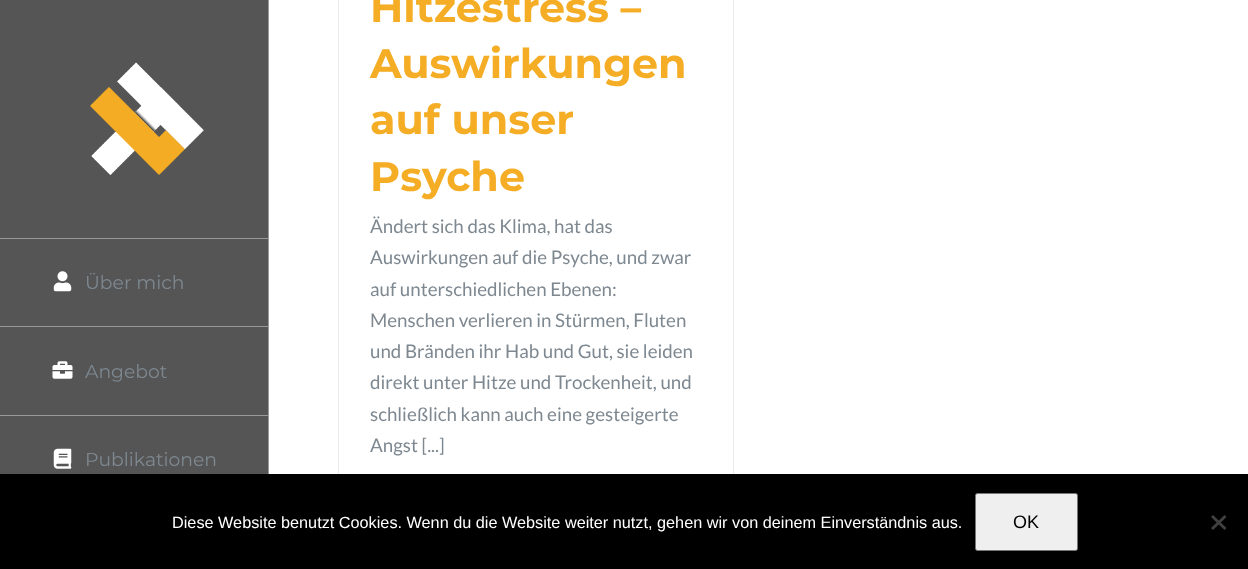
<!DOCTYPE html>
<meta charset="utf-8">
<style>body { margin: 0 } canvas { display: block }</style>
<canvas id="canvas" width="1248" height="569"></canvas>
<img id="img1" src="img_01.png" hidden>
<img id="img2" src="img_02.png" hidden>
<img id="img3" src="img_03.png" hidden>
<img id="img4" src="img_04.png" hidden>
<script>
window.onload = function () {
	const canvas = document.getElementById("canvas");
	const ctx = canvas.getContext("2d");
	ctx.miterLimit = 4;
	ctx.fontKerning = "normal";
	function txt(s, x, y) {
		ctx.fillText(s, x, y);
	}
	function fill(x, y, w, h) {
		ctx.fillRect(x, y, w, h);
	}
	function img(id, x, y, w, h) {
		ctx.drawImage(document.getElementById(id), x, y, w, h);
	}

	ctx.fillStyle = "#FFFFFF";
	fill(0, 0, 1248, 569);
	ctx.fillStyle = "#555555";
	fill(0, 0, 268, 474);
	ctx.fillStyle = "#999999";
	fill(268, 0, 1, 474);
	img("img1", 90, 62, 114, 113);
	fill(0, 238, 268, 1);
	fill(0, 326, 268, 1);
	img("img2", 53, 271, 19, 21);
	fill(0, 415, 268, 1);
	img("img3", 52, 361, 21, 18);
	img("img4", 53, 448, 19, 21);
	ctx.fillStyle = "#EBEAEA";
	fill(733, 0, 1, 474);
	fill(338, 0, 1, 474);
	ctx.fillStyle = "#000000";
	fill(0, 474, 1248, 95);
	ctx.fillStyle = "#EFEFEF";
	ctx.beginPath();
	ctx.roundRect(975.5, 493.5, 102, 57, 2);
	ctx.fill();
	ctx.strokeStyle = "#767676";
	ctx.stroke();
	ctx.fillStyle = "#404040";
	ctx.beginPath();
	ctx.moveTo(1224.5, 515);
	ctx.lineTo(1226.5, 517);
	ctx.lineTo(1213, 530);
	ctx.lineTo(1211, 528);
	ctx.closePath();
	ctx.fill();
	ctx.beginPath();
	ctx.moveTo(1211, 517);
	ctx.lineTo(1213, 515);
	ctx.lineTo(1226.5, 528);
	ctx.lineTo(1224.5, 530);
	ctx.closePath();
	ctx.fill();
	ctx.font = "18.75px Montserrat";
	ctx.fillStyle = "#7E8890";
	txt("Über mich", 85, 289);
	txt("Angebot", 85, 378);
	txt("Publikationen", 85, 466);
	ctx.font = "bold 41.25px Montserrat";
	ctx.fillStyle = "#F4AD24";
	txt("Hitzestress –", 370, 22);
	txt("Auswirkungen", 370, 78);
	txt("auf unser", 370, 134);
	txt("Psyche", 370, 191);
	ctx.font = "18.75px Lato";
	ctx.fillStyle = "#7E8890";
	txt("Ändert sich das Klima, hat das", 370, 233);
	txt("Auswirkungen auf die Psyche, und zwar", 370, 264);
	txt("auf unterschiedlichen Ebenen:", 370, 296);
	txt("Menschen verlieren in Stürmen, Fluten", 370, 327);
	txt("und Bränden ihr Hab und Gut, sie leiden", 370, 358);
	txt("direkt unter Hitze und Trockenheit, und", 370, 389);
	txt("schließlich kann auch eine gesteigerte", 370, 421);
	txt("Angst [...]", 370, 452);
	ctx.font = "16.25px Liberation Sans";
	ctx.fillStyle = "#FFFFFF";
	txt("Diese Website benutzt Cookies. Wenn du die Website weiter nutzt, gehen wir von deinem Einverständnis aus.", 172, 528);
	ctx.font = "18px Liberation Sans";
	ctx.fillStyle = "#000000";
	txt("OK", 1013, 528);
};
</script>
